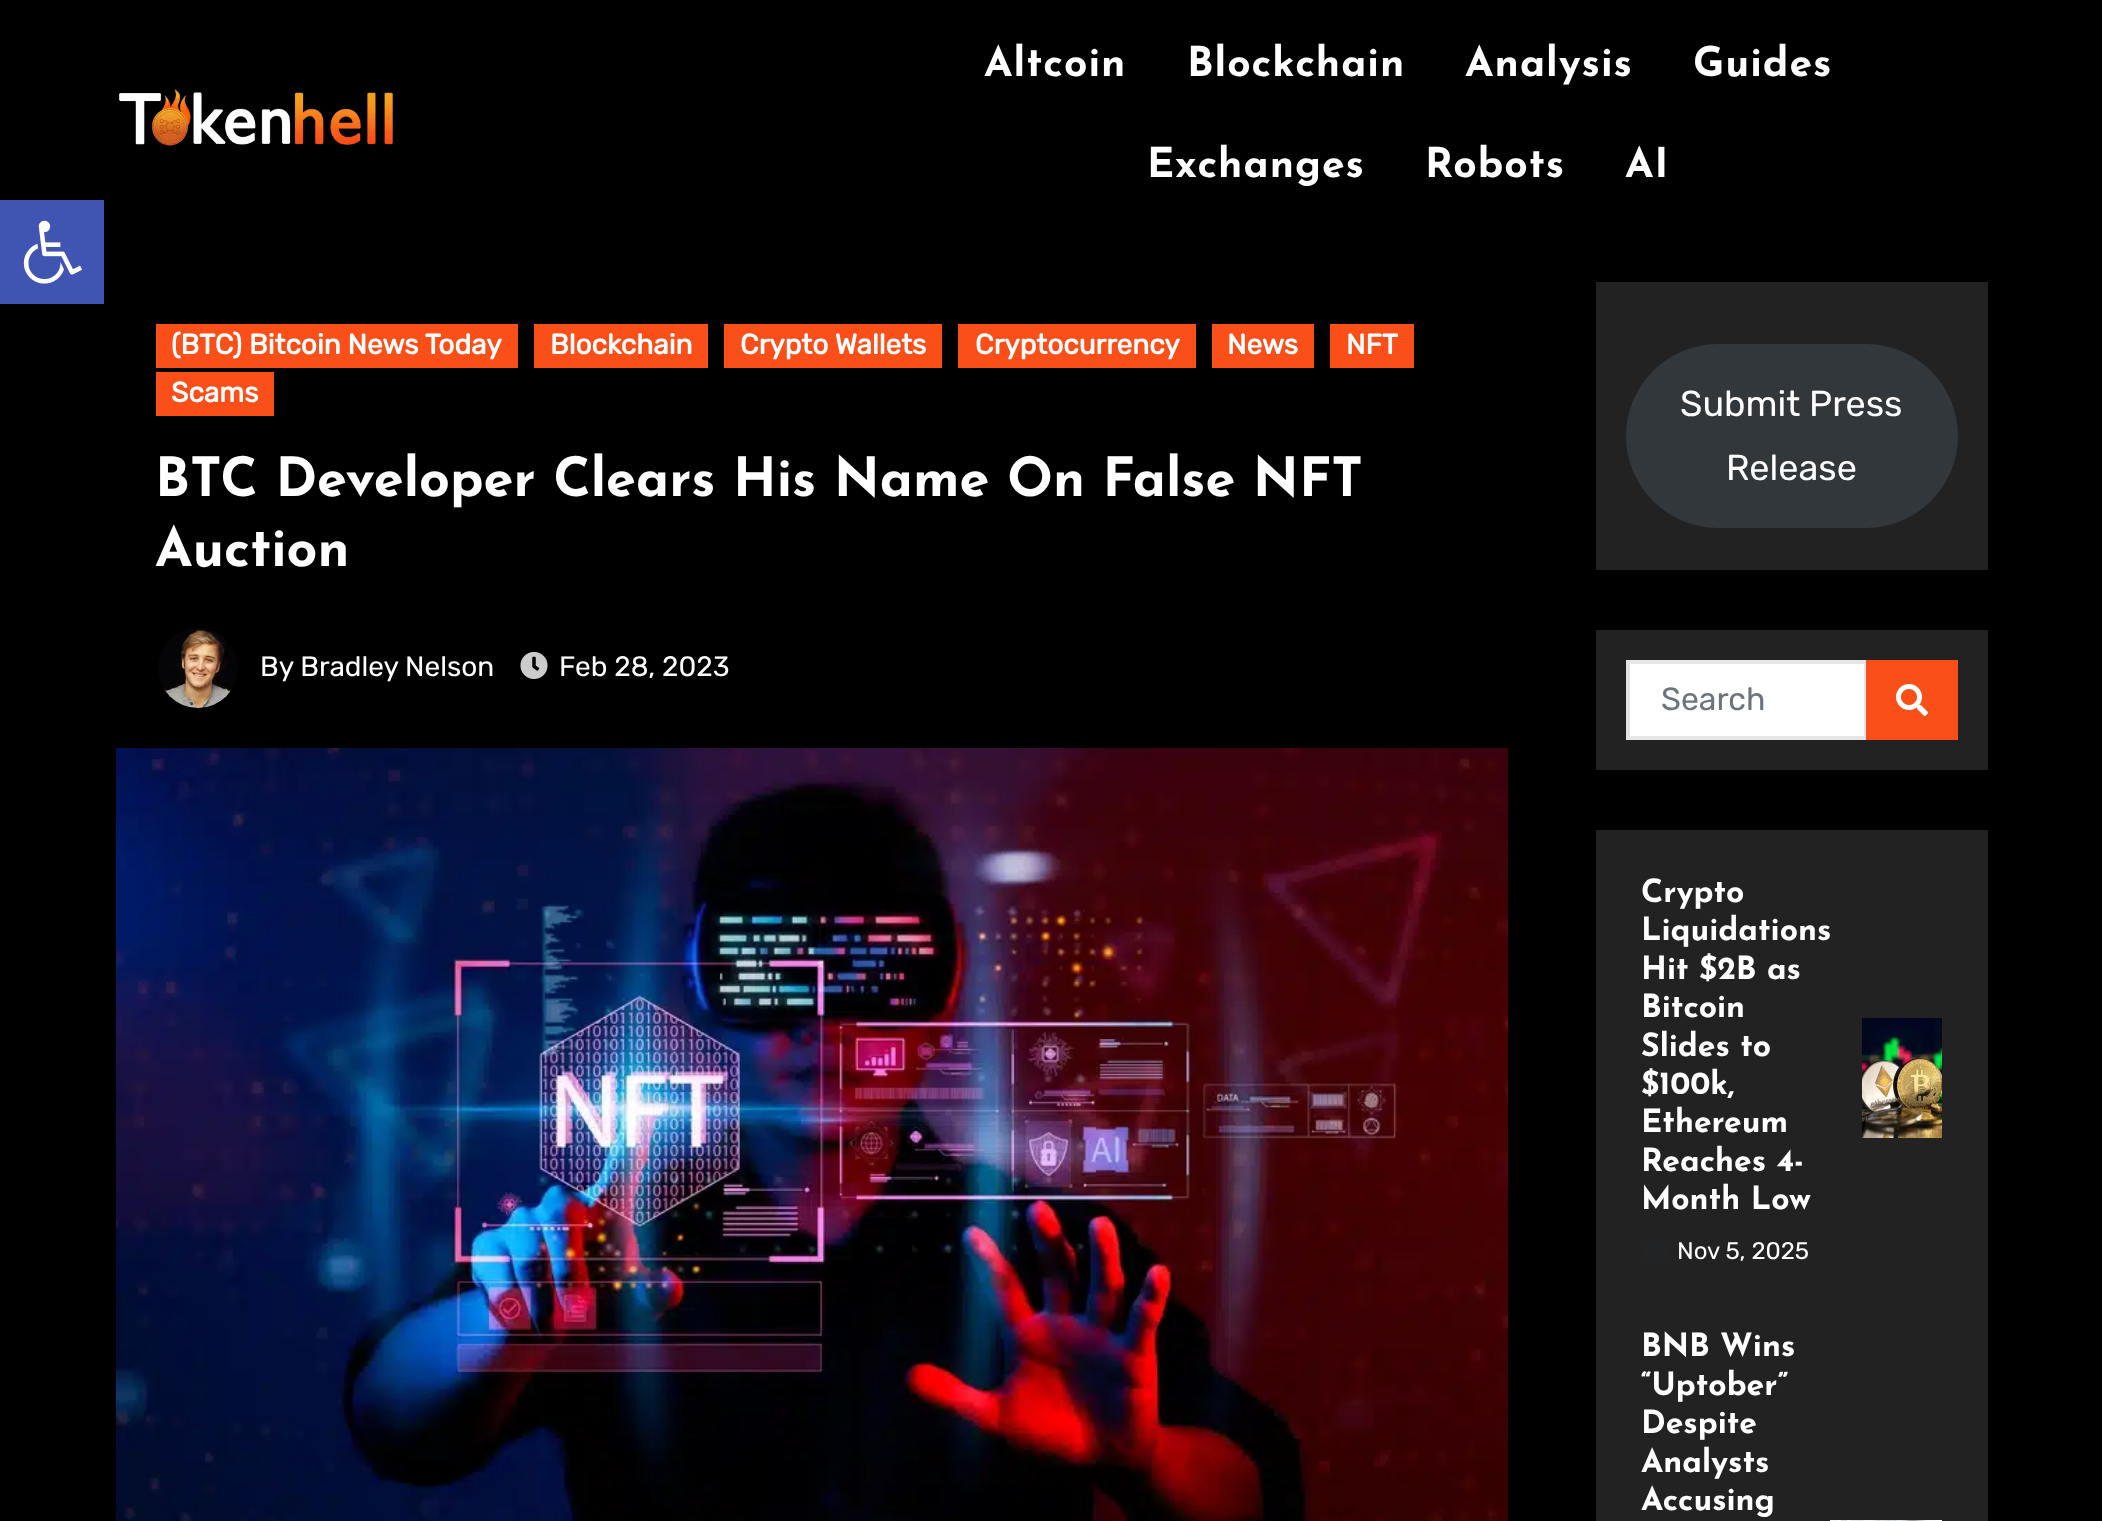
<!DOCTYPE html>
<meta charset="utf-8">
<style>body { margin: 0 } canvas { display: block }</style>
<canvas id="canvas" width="2102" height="1521"></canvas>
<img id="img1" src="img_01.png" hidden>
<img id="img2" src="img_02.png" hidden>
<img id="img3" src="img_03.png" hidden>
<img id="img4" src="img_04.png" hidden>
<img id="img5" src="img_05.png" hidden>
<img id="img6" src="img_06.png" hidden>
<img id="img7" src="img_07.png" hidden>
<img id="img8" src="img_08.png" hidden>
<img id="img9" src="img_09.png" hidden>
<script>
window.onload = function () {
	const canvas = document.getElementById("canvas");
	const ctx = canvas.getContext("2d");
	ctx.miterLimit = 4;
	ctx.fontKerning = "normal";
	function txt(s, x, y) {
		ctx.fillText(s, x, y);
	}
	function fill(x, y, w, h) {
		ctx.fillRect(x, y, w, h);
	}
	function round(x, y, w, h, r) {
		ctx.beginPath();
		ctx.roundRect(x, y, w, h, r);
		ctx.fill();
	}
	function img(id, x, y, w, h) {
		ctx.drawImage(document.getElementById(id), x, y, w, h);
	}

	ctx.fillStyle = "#000000";
	fill(0, 0, 2102, 1521);
	ctx.fillStyle = "#4054B2";
	fill(0, 200, 104, 104);
	img("img1", 23, 220, 59, 64);
	img("img2", 119, 89, 274, 57);
	ctx.fillStyle = "#FA4F19";
	fill(156, 324, 362, 44);
	fill(534, 324, 174, 44);
	fill(724, 324, 218, 44);
	fill(958, 324, 238, 44);
	fill(1212, 324, 102, 44);
	fill(1330, 324, 84, 44);
	fill(156, 372, 118, 44);
	img("img3", 158, 628, 80, 80);
	img("img4", 520, 652, 28, 27);
	img("img5", 116, 748, 1392, 773);
	ctx.fillStyle = "#222222";
	fill(1596, 282, 392, 288);
	ctx.fillStyle = "#32373C";
	round(1626, 344, 332, 184, 92);
	ctx.fillStyle = "#222222";
	fill(1596, 630, 392, 140);
	ctx.fillStyle = "#FFFFFF";
	ctx.beginPath();
	ctx.rect(1628, 662, 238, 76);
	ctx.fill();
	ctx.strokeStyle = "#E5E5E5";
	ctx.lineWidth = 4;
	ctx.stroke();
	ctx.fillStyle = "#FA4F19";
	fill(1866, 660, 92, 80);
	img("img6", 1896, 684, 32, 32);
	ctx.fillStyle = "#222222";
	fill(1596, 830, 392, 691);
	img("img7", 1645, 1240, 22, 22);
	img("img8", 1862, 1018, 80, 120);
	img("img9", 1830, 1520, 112, 1);
	ctx.letterSpacing = "1px";
	ctx.font = "bold 41px Josefin Sans";
	ctx.fillStyle = "#FFFFFF";
	txt("Altcoin", 984, 76);
	txt("Blockchain", 1187, 76);
	txt("Analysis", 1465, 76);
	txt("Guides", 1693, 76);
	txt("Exchanges", 1147, 177);
	txt("Robots", 1425, 177);
	txt("AI", 1625, 177);
	ctx.letterSpacing = "0px";
	ctx.font = "bold 28px Rubik";
	txt("(BTC) Bitcoin News Today", 171, 354);
	txt("Blockchain", 550, 354);
	txt("Crypto Wallets", 740, 354);
	txt("Cryptocurrency", 975, 354);
	txt("News", 1227, 354);
	txt("NFT", 1346, 354);
	txt("Scams", 171, 402);
	ctx.font = "bold 54px Josefin Sans";
	txt("BTC Developer Clears His Name On False NFT", 155, 496);
	txt("Auction", 155, 566);
	ctx.font = "300 28px Rubik";
	txt("By Bradley Nelson", 260, 676);
	txt("Feb 28, 2023", 559, 676);
	ctx.font = "300 36px Rubik";
	txt("Submit Press", 1680, 416);
	txt("Release", 1726, 480);
	ctx.font = "300 32px Rubik";
	ctx.fillStyle = "#6C757D";
	txt("Search", 1661, 710);
	ctx.font = "bold 32px Josefin Sans";
	ctx.fillStyle = "#FFFFFF";
	txt("Crypto", 1641, 902);
	txt("Liquidations", 1641, 940);
	txt("Hit $2B as", 1641, 979);
	txt("Bitcoin", 1641, 1017);
	txt("Slides to", 1641, 1056);
	txt("$100k,", 1641, 1094);
	txt("Ethereum", 1641, 1132);
	txt("Reaches 4-", 1641, 1171);
	txt("Month Low", 1641, 1209);
	ctx.font = "300 24px Rubik";
	txt("Nov 5, 2025", 1677, 1259);
	ctx.font = "bold 32px Josefin Sans";
	txt("BNB Wins", 1641, 1356);
	txt("“Uptober”", 1641, 1395);
	txt("Despite", 1641, 1433);
	txt("Analysts", 1641, 1472);
	txt("Accusing", 1641, 1510);
};
</script>
